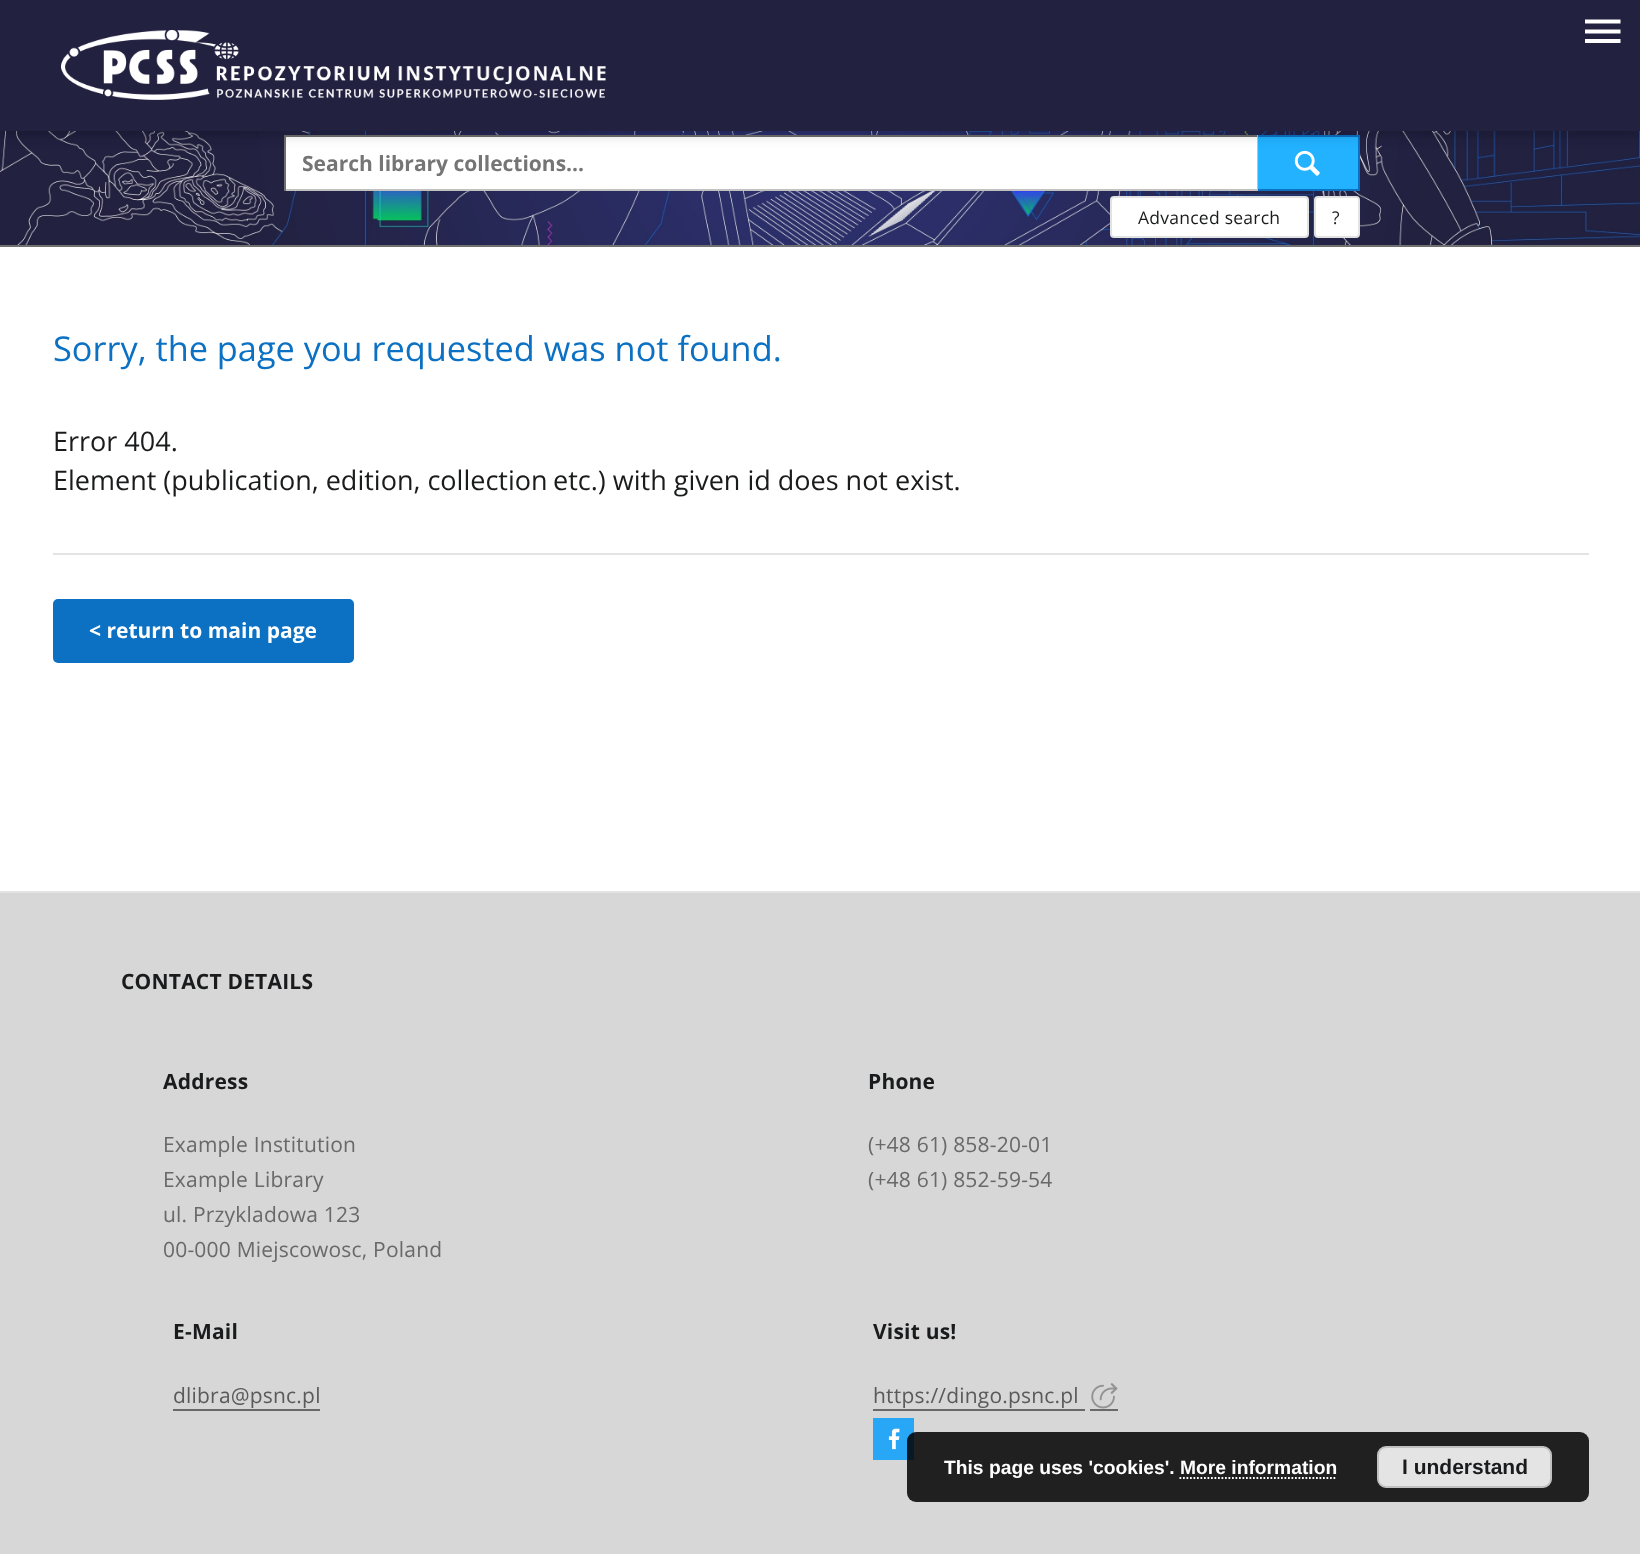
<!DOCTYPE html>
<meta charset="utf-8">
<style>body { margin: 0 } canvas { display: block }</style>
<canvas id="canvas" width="1640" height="1554"></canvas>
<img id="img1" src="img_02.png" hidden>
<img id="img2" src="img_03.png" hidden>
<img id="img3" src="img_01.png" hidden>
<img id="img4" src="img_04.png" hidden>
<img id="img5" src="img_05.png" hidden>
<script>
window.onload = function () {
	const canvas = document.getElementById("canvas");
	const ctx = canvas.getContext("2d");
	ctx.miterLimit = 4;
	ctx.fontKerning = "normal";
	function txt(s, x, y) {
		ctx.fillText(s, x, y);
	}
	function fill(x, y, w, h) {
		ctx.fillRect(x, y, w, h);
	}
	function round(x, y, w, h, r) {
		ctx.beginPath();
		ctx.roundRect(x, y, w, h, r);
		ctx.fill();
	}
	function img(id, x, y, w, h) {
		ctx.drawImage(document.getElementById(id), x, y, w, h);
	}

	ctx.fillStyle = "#FFFFFF";
	fill(0, 0, 1640, 1554);
	img("img1", 0, 131, 1640, 114);
	fill(286, 137, 971, 52);
	ctx.fillStyle = "#707070";
	fill(284, 135, 974, 2);
	ctx.fillStyle = "#C1C1C1";
	fill(1257, 135, 1, 56);
	fill(284, 189, 974, 2);
	ctx.fillStyle = "#707070";
	fill(284, 135, 2, 56);
	ctx.fillStyle = "#23B2FF";
	fill(1258, 137, 100, 52);
	ctx.fillStyle = "#0C71C3";
	fill(1258, 135, 102, 2);
	fill(1358, 135, 2, 56);
	img("img2", 1294, 150, 26, 26);
	ctx.fillStyle = "rgba(0, 0, 0, 0.08)";
	ctx.filter = "blur(9px)";
	ctx.beginPath();
	ctx.rect(0, 2, 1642, 131);
	ctx.fill();
	ctx.filter = "none";
	ctx.fillStyle = "rgba(0, 0, 0, 0.06)";
	ctx.filter = "blur(4.5px)";
	ctx.beginPath();
	ctx.rect(0, 7, 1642, 131);
	ctx.fill();
	ctx.filter = "none";
	ctx.filter = "blur(3.5px)";
	ctx.beginPath();
	ctx.rect(2, 5, 1638, 128);
	ctx.fill();
	ctx.filter = "none";
	ctx.fillStyle = "#222140";
	fill(0, 0, 1640, 131);
	img("img3", 61, 30, 545, 70);
	ctx.fillStyle = "#FFFFFF";
	ctx.beginPath();
	ctx.moveTo(1620.5, 23.5);
	ctx.lineTo(1585, 23.5);
	ctx.lineTo(1585, 19.5);
	ctx.lineTo(1620.5, 19.5);
	ctx.closePath();
	ctx.moveTo(1620.5, 29.5);
	ctx.lineTo(1585, 29.5);
	ctx.lineTo(1585, 33.5);
	ctx.lineTo(1620.5, 33.5);
	ctx.closePath();
	ctx.moveTo(1620.5, 39);
	ctx.lineTo(1585, 39);
	ctx.lineTo(1585, 43);
	ctx.lineTo(1620.5, 43);
	ctx.closePath();
	ctx.fill();
	ctx.fillStyle = "#707070";
	fill(0, 245, 1640, 2);
	ctx.fillStyle = "#0C71C3";
	fill(1258, 189, 102, 2);
	ctx.fillStyle = "#FFFFFF";
	ctx.beginPath();
	ctx.roundRect(1111, 197, 197, 40, 3);
	ctx.fill();
	ctx.strokeStyle = "#E2E2E2";
	ctx.lineWidth = 2;
	ctx.stroke();
	ctx.beginPath();
	ctx.roundRect(1315, 197, 44, 40, 3);
	ctx.fill();
	ctx.stroke();
	ctx.fillStyle = "#E4E4E4";
	fill(53, 553, 1536, 2);
	ctx.fillStyle = "#0C71C3";
	ctx.beginPath();
	ctx.roundRect(54, 600, 299, 62, 4);
	ctx.fill();
	ctx.strokeStyle = "#0C71C3";
	ctx.stroke();
	ctx.fillStyle = "#D7D7D7";
	fill(0, 893, 1640, 661);
	ctx.fillStyle = "#E4E4E4";
	fill(0, 891, 1640, 2);
	ctx.fillStyle = "#696969";
	fill(173, 1409, 147, 2);
	fill(873, 1409, 212, 2);
	fill(1090, 1409, 28, 2);
	img("img4", 1091, 1383, 27, 26);
	ctx.fillStyle = "#28A7F6";
	fill(873, 1418, 41, 42);
	img("img5", 888, 1428, 12, 22);
	ctx.fillStyle = "rgba(0, 0, 0, 0.85)";
	round(907, 1432, 682, 70, 9);
	ctx.fillStyle = "#E4E4E4";
	ctx.beginPath();
	ctx.roundRect(1378, 1447, 173, 40, 8);
	ctx.fill();
	ctx.strokeStyle = "#C1C1C1";
	ctx.stroke();
	ctx.beginPath();
	ctx.moveTo(1179.5, 1478);
	ctx.lineTo(1337, 1478);
	ctx.strokeStyle = "#FFFFFF";
	ctx.lineWidth = 1.8;
	ctx.setLineDash([1.75, 1.75]);
	ctx.stroke();
	ctx.save();
	ctx.beginPath();
	ctx.rect(303, 149, 936, 30);
	ctx.clip();
	ctx.font = "bold 21px Open Sans";
	ctx.fillStyle = "#757575";
	txt("Search library collections...", 302, 171);
	ctx.restore();
	ctx.letterSpacing = "0.25px";
	ctx.font = "17.5px Open Sans";
	ctx.fillStyle = "#1A1B1C";
	txt("Advanced search", 1138, 224);
	ctx.letterSpacing = "0px";
	txt("?", 1332, 224);
	ctx.font = "34.3px Open Sans";
	ctx.fillStyle = "#0C71C3";
	txt("Sorry, the page you requested was not found.", 53, 361);
	ctx.font = "27px Open Sans";
	ctx.fillStyle = "#1A1B1C";
	txt("Error 404.", 53, 451);
	txt("Element (publication, edition, collection", 53, 490);
	txt("etc.) with given id does not exist.", 553, 490);
	ctx.font = "bold 21px Open Sans";
	ctx.fillStyle = "#FFFFFF";
	txt("< return to main page", 89, 638);
	ctx.letterSpacing = "0.2px";
	ctx.fillStyle = "#1A1B1C";
	txt("CONTACT DETAILS", 121, 989);
	txt("Address", 163, 1089);
	ctx.font = "21px Open Sans";
	ctx.fillStyle = "#696969";
	txt("Example Institution", 163, 1152);
	txt("Example Library", 163, 1187);
	txt("ul. Przykladowa 123", 163, 1222);
	txt("00-000 Miejscowosc, Poland", 163, 1257);
	ctx.font = "bold 21px Open Sans";
	ctx.fillStyle = "#1A1B1C";
	txt("Phone", 868, 1089);
	ctx.font = "21px Open Sans";
	ctx.fillStyle = "#696969";
	txt("(+48 61) 858-20-01", 868, 1152);
	txt("(+48 61) 852-59-54", 868, 1187);
	ctx.font = "bold 21px Open Sans";
	ctx.fillStyle = "#1A1B1C";
	txt("E-Mail", 173, 1339);
	ctx.font = "21px Open Sans";
	ctx.fillStyle = "#5A5A5A";
	txt("dlibra@psnc.pl", 173, 1403);
	ctx.font = "bold 21px Open Sans";
	ctx.fillStyle = "#1A1B1C";
	txt("Visit us!", 873, 1339);
	ctx.font = "21px Open Sans";
	ctx.fillStyle = "#5A5A5A";
	txt("https://dingo.psnc.pl", 873, 1403);
	ctx.letterSpacing = "0px";
	ctx.font = "bold 19.25px Liberation Sans";
	ctx.fillStyle = "#FFFFFF";
	txt("This page uses 'cookies'. More information", 944, 1474);
	ctx.font = "bold 21px Liberation Sans";
	ctx.fillStyle = "#1A1B1C";
	txt("I understand", 1402, 1474);
};
</script>
